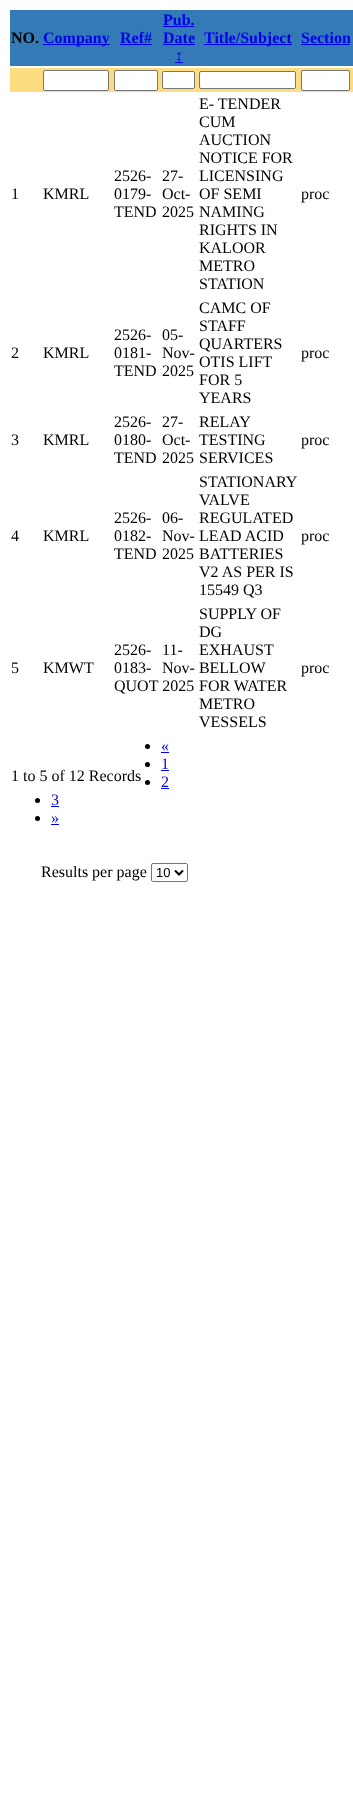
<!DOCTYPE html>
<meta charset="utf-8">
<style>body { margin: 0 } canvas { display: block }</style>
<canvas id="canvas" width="353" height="1813"></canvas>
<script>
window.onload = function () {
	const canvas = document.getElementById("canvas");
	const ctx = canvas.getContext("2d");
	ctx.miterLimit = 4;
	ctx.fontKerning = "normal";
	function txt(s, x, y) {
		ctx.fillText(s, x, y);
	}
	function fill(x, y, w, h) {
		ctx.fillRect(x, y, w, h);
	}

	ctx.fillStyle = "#FFFFFF";
	fill(0, 0, 353, 1813);
	ctx.fillStyle = "#337AB7";
	fill(10, 10, 343, 56);
	ctx.fillStyle = "#0000EE";
	fill(43, 44, 67, 1);
	fill(120, 44, 32, 1);
	fill(163, 26, 31, 1);
	fill(163, 44, 32, 1);
	fill(175, 62, 8, 1);
	fill(204, 44, 88, 1);
	fill(301, 44, 49, 1);
	ctx.fillStyle = "#FCDD82";
	fill(10, 68, 343, 24);
	ctx.fillStyle = "#FFFFFF";
	ctx.beginPath();
	ctx.roundRect(43.5, 70.5, 65, 20, 1.5);
	ctx.fill();
	ctx.strokeStyle = "#767676";
	ctx.stroke();
	ctx.beginPath();
	ctx.roundRect(114.5, 70.5, 43, 20, 1.5);
	ctx.fill();
	ctx.stroke();
	ctx.beginPath();
	ctx.roundRect(162.5, 71.5, 32, 17, 1.5);
	ctx.fill();
	ctx.stroke();
	ctx.beginPath();
	ctx.roundRect(199.5, 71.5, 96, 17, 1.5);
	ctx.fill();
	ctx.stroke();
	ctx.beginPath();
	ctx.roundRect(301.5, 70.5, 48, 20, 1.5);
	ctx.fill();
	ctx.stroke();
	ctx.fillStyle = "#000000";
	ctx.beginPath();
	ctx.arc(147.5, 746.5, 2.5, 0, Math.PI * 2);
	ctx.fill();
	ctx.fillStyle = "#0000EE";
	fill(161, 752, 8, 1);
	ctx.fillStyle = "#000000";
	ctx.beginPath();
	ctx.arc(147.5, 764.5, 2.5, 0, Math.PI * 2);
	ctx.fill();
	ctx.fillStyle = "#0000EE";
	fill(161, 770, 8, 1);
	ctx.fillStyle = "#000000";
	ctx.beginPath();
	ctx.arc(147.5, 782.5, 2.5, 0, Math.PI * 2);
	ctx.fill();
	ctx.fillStyle = "#0000EE";
	fill(161, 788, 8, 1);
	ctx.fillStyle = "#000000";
	ctx.beginPath();
	ctx.arc(37.5, 800.5, 2.5, 0, Math.PI * 2);
	ctx.fill();
	ctx.fillStyle = "#0000EE";
	fill(51, 806, 8, 1);
	ctx.fillStyle = "#000000";
	ctx.beginPath();
	ctx.arc(37.5, 818.5, 2.5, 0, Math.PI * 2);
	ctx.fill();
	ctx.fillStyle = "#0000EE";
	fill(51, 824, 8, 1);
	ctx.beginPath();
	ctx.roundRect(151.5, 863.5, 36, 18, 1.5);
	ctx.stroke();
	ctx.beginPath();
	ctx.moveTo(175, 870.5);
	ctx.lineTo(179, 874.5);
	ctx.lineTo(183, 870.5);
	ctx.strokeStyle = "#000000";
	ctx.lineWidth = 2;
	ctx.stroke();
	ctx.font = "bold 16px Liberation Serif";
	ctx.fillStyle = "#000000";
	txt("NO.", 11, 43);
	ctx.fillStyle = "#0000EE";
	txt("Company", 43, 43);
	txt("Ref#", 120, 43);
	txt("Pub.", 163, 25);
	txt("Date", 163, 43);
	txt("↕", 175, 61);
	txt("Title/Subject", 204, 43);
	txt("Section", 301, 43);
	ctx.font = "16px Liberation Serif";
	ctx.fillStyle = "#000000";
	txt("1", 11, 199);
	txt("KMRL", 43, 199);
	txt("2526-", 114, 181);
	txt("0179-", 114, 199);
	txt("TEND", 114, 217);
	txt("27-", 162, 181);
	txt("Oct-", 162, 199);
	txt("2025", 162, 217);
	txt("E- TENDER", 199, 109);
	txt("CUM", 199, 127);
	txt("AUCTION", 199, 145);
	txt("NOTICE FOR", 199, 163);
	txt("LICENSING", 199, 181);
	txt("OF SEMI", 199, 199);
	txt("NAMING", 199, 217);
	txt("RIGHTS IN", 199, 235);
	txt("KALOOR", 199, 253);
	txt("METRO", 199, 271);
	txt("STATION", 199, 289);
	txt("proc", 301, 199);
	txt("2", 11, 358);
	txt("KMRL", 43, 358);
	txt("2526-", 114, 340);
	txt("0181-", 114, 358);
	txt("TEND", 114, 376);
	txt("05-", 162, 340);
	txt("Nov-", 162, 358);
	txt("2025", 162, 376);
	txt("CAMC OF", 199, 313);
	txt("STAFF", 199, 331);
	txt("QUARTERS", 199, 349);
	txt("OTIS LIFT", 199, 367);
	txt("FOR 5", 199, 385);
	txt("YEARS", 199, 403);
	txt("proc", 301, 358);
	txt("3", 11, 445);
	txt("KMRL", 43, 445);
	txt("2526-", 114, 427);
	txt("0180-", 114, 445);
	txt("TEND", 114, 463);
	txt("27-", 162, 427);
	txt("Oct-", 162, 445);
	txt("2025", 162, 463);
	txt("RELAY", 199, 427);
	txt("TESTING", 199, 445);
	txt("SERVICES", 199, 463);
	txt("proc", 301, 445);
	txt("2526-", 114, 523);
	txt("0182-", 114, 541);
	txt("TEND", 114, 559);
	txt("STATIONARY", 199, 487);
	txt("VALVE", 199, 505);
	txt("REGULATED", 199, 523);
	txt("BATTERIES", 199, 559);
	txt("V2 AS PER IS", 199, 577);
	txt("15549 Q3", 199, 595);
	txt("4", 11, 541);
	txt("KMRL", 43, 541);
	txt("06-", 162, 523);
	txt("Nov- LEAD ACID", 162, 541);
	txt("2025", 162, 559);
	txt("proc", 301, 541);
	txt("2526-", 114, 655);
	txt("0183-", 114, 673);
	txt("QUOT 2025", 114, 691);
	txt("SUPPLY OF", 199, 619);
	txt("DG", 199, 637);
	txt("EXHAUST", 199, 655);
	txt("FOR WATER", 199, 691);
	txt("METRO", 199, 709);
	txt("VESSELS", 199, 727);
	txt("5", 11, 673);
	txt("KMWT", 43, 673);
	txt("11-", 162, 655);
	txt("Nov- BELLOW", 162, 673);
	txt("proc", 301, 673);
	ctx.fillStyle = "#0000EE";
	txt("«", 161, 751);
	txt("1", 161, 769);
	txt("2", 161, 787);
	txt("3", 51, 805);
	txt("»", 51, 823);
	ctx.fillStyle = "#000000";
	txt("1 to 5 of 12 Records", 11, 781);
	txt("Results per page", 41, 877);
	ctx.font = "13px Liberation Sans";
	txt("10", 156, 877);
};
</script>
